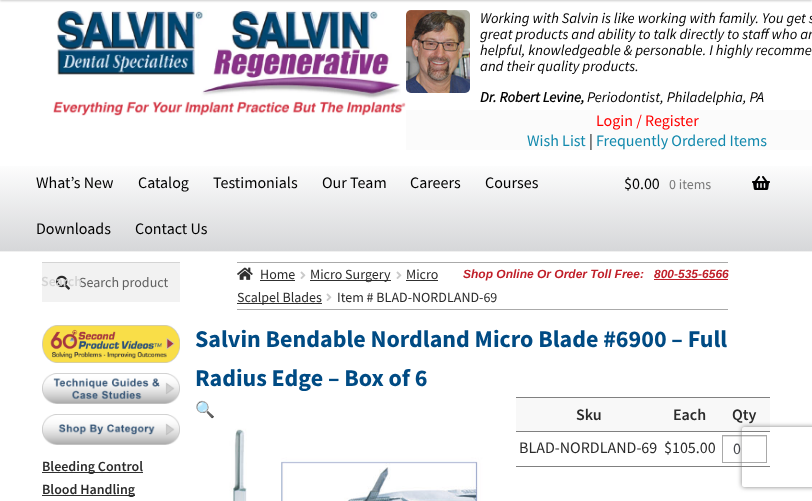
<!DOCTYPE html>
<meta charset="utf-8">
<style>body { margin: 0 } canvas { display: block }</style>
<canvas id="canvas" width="812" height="501"></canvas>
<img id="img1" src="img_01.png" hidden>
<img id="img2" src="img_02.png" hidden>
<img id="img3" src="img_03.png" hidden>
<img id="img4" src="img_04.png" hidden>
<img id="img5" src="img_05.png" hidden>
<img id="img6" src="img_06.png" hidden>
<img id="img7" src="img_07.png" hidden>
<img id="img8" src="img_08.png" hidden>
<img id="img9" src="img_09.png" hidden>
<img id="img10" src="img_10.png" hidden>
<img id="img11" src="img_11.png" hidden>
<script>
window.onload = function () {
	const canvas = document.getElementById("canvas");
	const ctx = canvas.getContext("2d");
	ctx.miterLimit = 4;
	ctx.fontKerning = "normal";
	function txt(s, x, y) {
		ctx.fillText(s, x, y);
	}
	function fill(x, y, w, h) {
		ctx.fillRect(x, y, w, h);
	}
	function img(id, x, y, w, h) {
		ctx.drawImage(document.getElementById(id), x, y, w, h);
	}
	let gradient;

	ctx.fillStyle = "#FFFFFF";
	fill(0, 0, 812, 501);
	ctx.fillStyle = "rgba(0, 0, 0, 0.2)";
	ctx.filter = "blur(1px)";
	ctx.beginPath();
	ctx.rect(0, -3, 812, 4);
	ctx.fill();
	ctx.filter = "none";
	ctx.fillStyle = "#F0F0F0";
	fill(0, 251, 812, 1);
	img("img1", 57, 10, 344, 89);
	img("img2", 53, 101, 353, 15);
	img("img3", 406, 10, 64, 83);
	ctx.fillStyle = "#FBFBFB";
	fill(406, 110, 406, 40);
	gradient = ctx.createLinearGradient(406, 160, 406, 251);
	gradient.addColorStop(0, "#FFFFFF");
	gradient.addColorStop(1, "#D6D7D9");
	ctx.fillStyle = gradient;
	fill(0, 166, 812, 85);
	img("img4", 752, 176, 18, 14);
	ctx.fillStyle = "#F2F2F2";
	fill(42, 263, 138, 39);
	img("img5", 56, 275, 14, 15);
	ctx.fillStyle = "#D4D4D4";
	fill(42, 262, 138, 1);
	img("img6", 42, 325, 138, 38);
	img("img7", 42, 373, 138, 31);
	img("img8", 42, 414, 138, 31);
	ctx.fillStyle = "#303030";
	fill(42, 472, 101, 1);
	fill(42, 495, 93, 1);
	ctx.fillStyle = "#AAAAAA";
	fill(237, 262, 491, 1);
	fill(237, 309, 491, 1);
	img("img9", 237, 267, 16, 13);
	ctx.fillStyle = "#303030";
	fill(260, 280, 35, 1);
	img("img10", 300, 271, 6, 8);
	fill(310, 280, 81, 1);
	img("img10", 396, 271, 6, 8);
	fill(406, 280, 32, 1);
	ctx.fillStyle = "#C01F29";
	fill(654, 279, 74, 1);
	ctx.fillStyle = "#303030";
	fill(237, 303, 85, 1);
	img("img10", 326, 293, 6, 8);
	img("img11", 195, 423, 299, 78);
	ctx.fillStyle = "#F8F8F8";
	fill(516, 398, 254, 33);
	ctx.fillStyle = "#808080";
	fill(516, 397, 254, 1);
	fill(516, 431, 254, 1);
	ctx.fillStyle = "#DFDFDF";
	fill(723, 436, 43, 1);
	ctx.strokeStyle = "#A9A9A9";
	ctx.strokeRect(722.5, 435.5, 44, 27);
	ctx.fillStyle = "#808080";
	fill(516, 466, 254, 1);
	ctx.save();
	ctx.beginPath();
	ctx.moveTo(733, 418);
	ctx.lineTo(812, 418);
	ctx.lineTo(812, 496);
	ctx.lineTo(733, 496);
	ctx.closePath();
	ctx.moveTo(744, 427);
	ctx.lineTo(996, 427);
	ctx.bezierCurveTo(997, 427, 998, 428, 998, 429);
	ctx.lineTo(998, 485);
	ctx.bezierCurveTo(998, 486, 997, 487, 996, 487);
	ctx.lineTo(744, 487);
	ctx.bezierCurveTo(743, 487, 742, 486, 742, 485);
	ctx.lineTo(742, 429);
	ctx.bezierCurveTo(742, 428, 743, 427, 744, 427);
	ctx.closePath();
	ctx.clip("evenodd");
	ctx.filter = "blur(2.5px)";
	ctx.beginPath();
	ctx.roundRect(742, 427, 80, 60, 2);
	ctx.fill();
	ctx.filter = "none";
	ctx.restore();
	ctx.font = "italic 14.7px Source Sans Pro";
	ctx.fillStyle = "#000000";
	txt("Working with Salvin is like working with family. You get s", 480, 23);
	txt("great products and ability to talk directly to staff who ar", 480, 39);
	txt("helpful, knowledgeable & personable. I highly recomme", 480, 55);
	txt("and their quality products.", 480, 71);
	ctx.font = "italic bold 14.7px Source Sans Pro";
	txt("Dr. Robert Levine,", 480, 102);
	ctx.font = "italic 14.7px Source Sans Pro";
	txt("Periodontist, Philadelphia, PA", 587, 102);
	ctx.font = "16px Source Sans Pro";
	ctx.fillStyle = "#FF0000";
	txt("Login / Register", 596, 126);
	ctx.fillStyle = "#1289AD";
	txt("Wish List", 527, 146);
	ctx.fillStyle = "#000000";
	txt("|", 589, 146);
	ctx.fillStyle = "#1289AD";
	txt("Frequently Ordered Items", 596, 146);
	ctx.fillStyle = "#000000";
	txt("What’s New", 36, 188);
	txt("Catalog", 138, 188);
	txt("Testimonials", 213, 188);
	txt("Our Team", 322, 188);
	txt("Careers", 410, 188);
	txt("Courses", 485, 188);
	txt("Downloads", 36, 234);
	txt("Contact Us", 135, 234);
	txt("$0.00", 624, 189);
	ctx.font = "14px Source Sans Pro";
	ctx.fillStyle = "#7A7A7A";
	txt("0 items", 669, 189);
	ctx.fillStyle = "#616161";
	txt("Search product", 79, 287);
	ctx.save();
	ctx.beginPath();
	ctx.rect(41, 261, 40, 40);
	ctx.clip();
	ctx.font = "600 14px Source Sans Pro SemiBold";
	ctx.fillStyle = "#D4D4D4";
	txt("Search", 41, 286);
	ctx.restore();
	ctx.font = "600 14px Source Sans Pro SemiBold";
	ctx.fillStyle = "#2B2B2B";
	txt("Bleeding Control", 42, 471);
	txt("Blood Handling", 42, 494);
	ctx.font = "14px Source Sans Pro";
	txt("Home", 260, 279);
	txt("Micro Surgery", 310, 279);
	txt("Micro", 406, 279);
	ctx.font = "italic bold 12px Liberation Sans";
	ctx.fillStyle = "#C01F29";
	txt("Shop Online Or Order Toll Free:", 463, 278);
	txt("800-535-6566", 654, 278);
	ctx.font = "14px Source Sans Pro";
	ctx.fillStyle = "#2B2B2B";
	txt("Scalpel Blades", 237, 302);
	txt("Item # BLAD-NORDLAND-69", 337, 302);
	ctx.font = "bold 24px Source Sans Pro";
	ctx.fillStyle = "#004B84";
	txt("Salvin Bendable Nordland Micro Blade #6900 – Full", 195, 347);
	txt("Radius Edge – Box of 6", 195, 386);
	ctx.font = "16px Noto Color Emoji";
	ctx.fillStyle = "#1289AD";
	txt("🔍", 195, 415);
	ctx.font = "600 16px Source Sans Pro SemiBold";
	ctx.fillStyle = "#2B2B2B";
	txt("Sku", 576, 420);
	txt("Each", 673, 420);
	txt("Qty", 732, 420);
	ctx.font = "16px Source Sans Pro";
	txt("BLAD-NORDLAND-69", 519, 453);
	txt("$105.00", 664, 453);
	ctx.fillStyle = "#43454B";
	txt("0", 733, 454);
};
</script>
